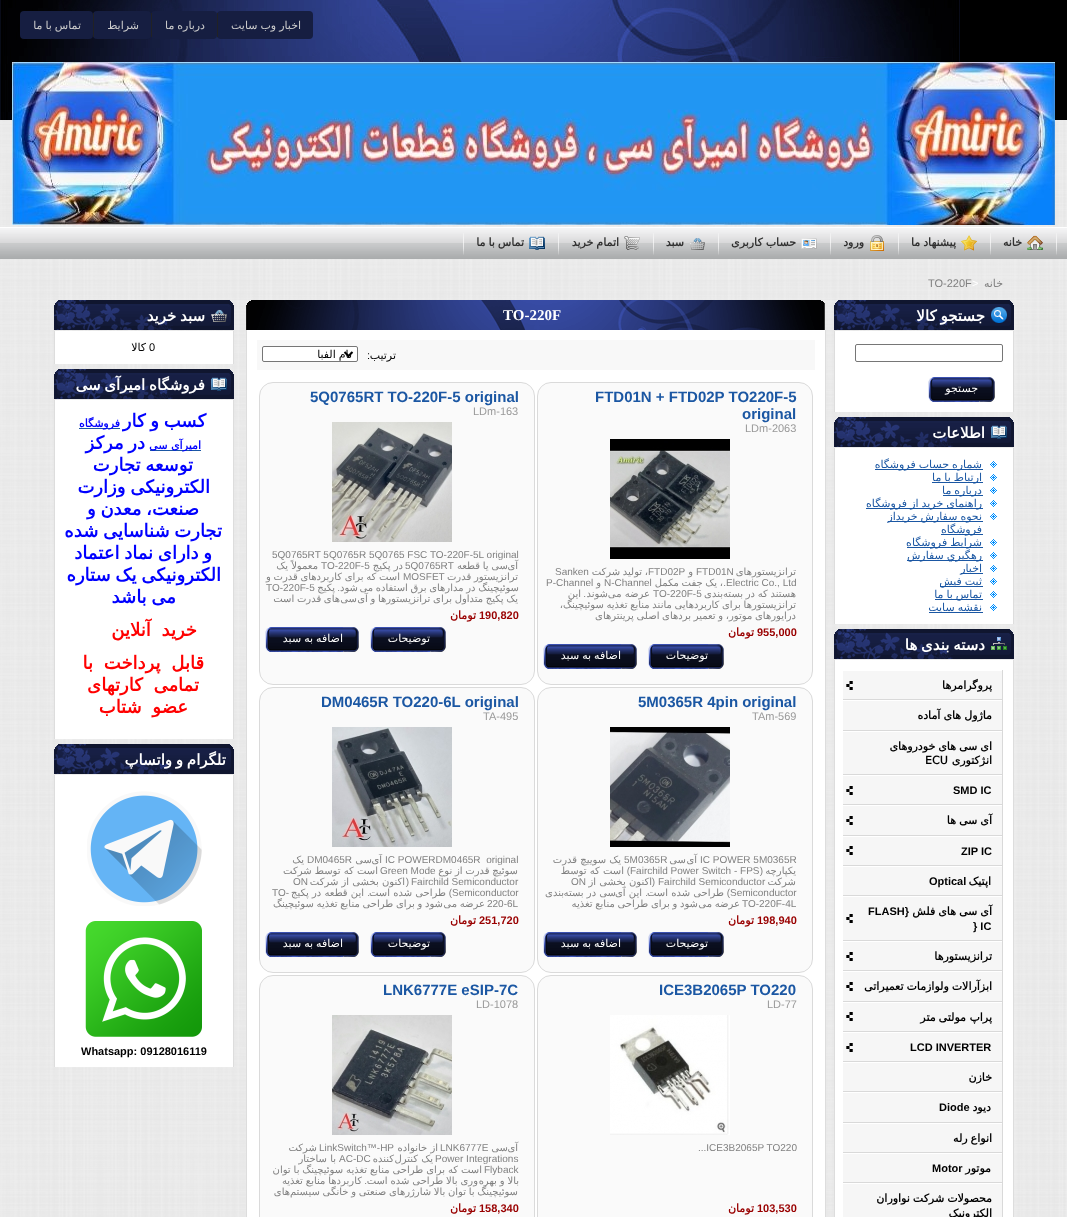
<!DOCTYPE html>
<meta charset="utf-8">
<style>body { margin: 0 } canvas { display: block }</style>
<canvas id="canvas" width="1067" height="1217"></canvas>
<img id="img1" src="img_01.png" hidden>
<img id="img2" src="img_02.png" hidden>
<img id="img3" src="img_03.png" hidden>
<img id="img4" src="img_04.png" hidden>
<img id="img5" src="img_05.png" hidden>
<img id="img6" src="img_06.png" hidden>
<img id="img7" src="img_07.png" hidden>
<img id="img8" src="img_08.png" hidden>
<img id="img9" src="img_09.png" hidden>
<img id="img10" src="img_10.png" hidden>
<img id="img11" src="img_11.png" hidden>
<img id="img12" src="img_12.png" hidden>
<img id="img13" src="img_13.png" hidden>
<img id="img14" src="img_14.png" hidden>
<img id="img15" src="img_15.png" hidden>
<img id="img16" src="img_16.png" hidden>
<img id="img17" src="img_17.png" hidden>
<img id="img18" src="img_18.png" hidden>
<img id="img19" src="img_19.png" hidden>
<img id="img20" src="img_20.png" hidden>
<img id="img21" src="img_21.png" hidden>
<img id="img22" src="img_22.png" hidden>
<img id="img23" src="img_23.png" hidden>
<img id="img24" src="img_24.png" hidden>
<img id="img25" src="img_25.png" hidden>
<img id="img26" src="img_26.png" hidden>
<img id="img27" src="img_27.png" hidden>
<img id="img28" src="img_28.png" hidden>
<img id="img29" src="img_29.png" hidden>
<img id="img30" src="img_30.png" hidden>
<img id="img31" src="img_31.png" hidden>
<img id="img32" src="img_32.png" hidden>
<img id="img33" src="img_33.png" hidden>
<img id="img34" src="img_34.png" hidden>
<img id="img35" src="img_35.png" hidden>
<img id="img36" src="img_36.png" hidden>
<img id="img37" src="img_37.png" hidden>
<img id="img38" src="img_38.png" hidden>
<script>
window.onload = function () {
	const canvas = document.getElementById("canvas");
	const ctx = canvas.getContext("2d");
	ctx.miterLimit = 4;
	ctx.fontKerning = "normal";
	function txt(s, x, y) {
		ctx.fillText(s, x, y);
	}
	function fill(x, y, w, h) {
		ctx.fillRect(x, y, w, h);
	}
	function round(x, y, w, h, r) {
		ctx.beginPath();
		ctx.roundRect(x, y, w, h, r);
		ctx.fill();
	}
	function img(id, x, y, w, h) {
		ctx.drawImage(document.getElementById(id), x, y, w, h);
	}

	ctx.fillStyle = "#FFFFFF";
	fill(0, 0, 1067, 1217);
	img("img1", 0, 120, 1067, 1097);
	ctx.fillStyle = "#000000";
	fill(960, 0, 107, 120);
	img("img2", 0, 0, 960, 120);
	ctx.fillStyle = "#161E41";
	round(217, 11, 96, 28, 4);
	ctx.fillStyle = "#212224";
	fill(217, 13, 1, 24);
	ctx.fillStyle = "#161E41";
	round(151, 11, 66, 28, 4);
	ctx.fillStyle = "#212224";
	fill(151, 13, 1, 24);
	ctx.fillStyle = "#161E41";
	round(93, 11, 58, 28, 4);
	ctx.fillStyle = "#212224";
	fill(93, 13, 1, 24);
	ctx.fillStyle = "#161E41";
	round(20, 11, 73, 28, 4);
	img("img3", 12, 62, 1043, 163);
	img("img4", 0, 227, 1067, 32);
	img("img5", 1056, 233, 1, 22);
	img("img6", 1027, 235, 16, 15);
	img("img5", 990, 233, 1, 22);
	img("img7", 961, 235, 16, 16);
	img("img5", 898, 233, 1, 22);
	img("img8", 870, 235, 14, 16);
	img("img5", 830, 233, 1, 22);
	img("img9", 801, 238, 16, 11);
	img("img5", 718, 233, 1, 22);
	img("img10", 689, 238, 16, 12);
	img("img5", 653, 233, 1, 22);
	img("img11", 624, 236, 16, 14);
	img("img5", 558, 233, 1, 22);
	img("img12", 529, 236, 16, 14);
	img("img5", 463, 233, 1, 22);
	img("img13", 834, 300, 180, 30);
	img("img14", 991, 307, 16, 16);
	ctx.fillStyle = "#FFFFFF";
	fill(835, 331, 178, 81);
	ctx.fillStyle = "#DDDDDD";
	fill(1013, 331, 1, 81);
	fill(834, 331, 1, 81);
	ctx.beginPath();
	ctx.roundRect(855.5, 344.5, 147, 17, 1.5);
	ctx.strokeStyle = "#767676";
	ctx.stroke();
	img("img15", 979, 377, 16, 25);
	img("img16", 928, 377, 51, 25);
	img("img17", 834, 417, 180, 30);
	img("img18", 991, 425, 16, 14);
	ctx.fillStyle = "#FFFFFF";
	fill(835, 448, 178, 176);
	ctx.fillStyle = "#DDDDDD";
	fill(1013, 448, 1, 176);
	fill(834, 448, 1, 176);
	img("img19", 990, 461, 7, 7);
	ctx.fillStyle = "#1B57A3";
	fill(875, 469, 108, 1);
	img("img19", 990, 474, 7, 7);
	fill(932, 482, 51, 1);
	img("img19", 990, 487, 7, 7);
	fill(943, 495, 40, 1);
	img("img19", 990, 500, 7, 7);
	fill(866, 508, 117, 1);
	img("img19", 990, 513, 7, 7);
	fill(888, 521, 95, 1);
	fill(941, 534, 42, 1);
	img("img19", 990, 539, 7, 7);
	fill(907, 547, 76, 1);
	img("img19", 990, 552, 7, 7);
	fill(907, 560, 76, 1);
	img("img19", 990, 565, 7, 7);
	fill(961, 573, 22, 1);
	img("img19", 990, 578, 7, 7);
	fill(940, 586, 43, 1);
	img("img19", 990, 591, 7, 7);
	fill(935, 599, 48, 1);
	img("img19", 990, 604, 7, 7);
	fill(929, 612, 54, 1);
	img("img20", 834, 629, 180, 30);
	img("img21", 991, 637, 16, 13);
	ctx.fillStyle = "#FFFFFF";
	fill(835, 660, 178, 557);
	ctx.fillStyle = "#DDDDDD";
	fill(1013, 660, 1, 557);
	fill(834, 660, 1, 557);
	ctx.fillStyle = "#F6F6F6";
	fill(843, 671, 159, 28);
	img("img22", 846, 681, 7, 9);
	ctx.fillStyle = "#D9D9D9";
	fill(1002, 670, 1, 547);
	fill(843, 699, 160, 1);
	ctx.fillStyle = "#F6F6F6";
	fill(843, 701, 159, 29);
	ctx.fillStyle = "#D9D9D9";
	fill(843, 730, 160, 1);
	ctx.fillStyle = "#F6F6F6";
	fill(843, 732, 159, 42);
	ctx.fillStyle = "#D9D9D9";
	fill(843, 774, 160, 1);
	ctx.fillStyle = "#F6F6F6";
	fill(843, 776, 159, 28);
	img("img22", 846, 786, 7, 9);
	ctx.fillStyle = "#D9D9D9";
	fill(843, 804, 160, 1);
	ctx.fillStyle = "#F6F6F6";
	fill(843, 806, 159, 29);
	img("img22", 846, 816, 7, 9);
	ctx.fillStyle = "#D9D9D9";
	fill(843, 835, 160, 1);
	ctx.fillStyle = "#F6F6F6";
	fill(843, 837, 159, 28);
	img("img22", 846, 846, 7, 9);
	ctx.fillStyle = "#D9D9D9";
	fill(843, 865, 160, 1);
	ctx.fillStyle = "#F6F6F6";
	fill(843, 867, 159, 28);
	ctx.fillStyle = "#D9D9D9";
	fill(843, 895, 160, 1);
	ctx.fillStyle = "#F6F6F6";
	fill(843, 897, 159, 43);
	img("img22", 846, 914, 7, 9);
	ctx.fillStyle = "#D9D9D9";
	fill(843, 940, 160, 1);
	ctx.fillStyle = "#F6F6F6";
	fill(843, 942, 159, 28);
	img("img22", 846, 952, 7, 9);
	ctx.fillStyle = "#D9D9D9";
	fill(843, 970, 160, 1);
	ctx.fillStyle = "#F6F6F6";
	fill(843, 972, 159, 29);
	img("img22", 846, 982, 7, 9);
	ctx.fillStyle = "#D9D9D9";
	fill(843, 1001, 160, 1);
	ctx.fillStyle = "#F6F6F6";
	fill(843, 1003, 159, 28);
	img("img22", 846, 1012, 7, 9);
	ctx.fillStyle = "#D9D9D9";
	fill(843, 1031, 160, 1);
	ctx.fillStyle = "#F6F6F6";
	fill(843, 1033, 159, 28);
	img("img22", 846, 1043, 7, 9);
	ctx.fillStyle = "#D9D9D9";
	fill(843, 1061, 160, 1);
	ctx.fillStyle = "#F6F6F6";
	fill(843, 1063, 159, 28);
	ctx.fillStyle = "#D9D9D9";
	fill(843, 1091, 160, 1);
	ctx.fillStyle = "#F6F6F6";
	fill(843, 1093, 159, 29);
	ctx.fillStyle = "#D9D9D9";
	fill(843, 1122, 160, 1);
	ctx.fillStyle = "#F6F6F6";
	fill(843, 1124, 159, 28);
	ctx.fillStyle = "#D9D9D9";
	fill(843, 1152, 160, 1);
	ctx.fillStyle = "#F6F6F6";
	fill(843, 1154, 159, 28);
	ctx.fillStyle = "#D9D9D9";
	fill(843, 1182, 160, 1);
	ctx.fillStyle = "#F6F6F6";
	fill(843, 1184, 159, 33);
	img("img23", 246, 300, 579, 30);
	ctx.fillStyle = "#FFFFFF";
	fill(247, 330, 578, 887);
	ctx.fillStyle = "#DDDDDD";
	fill(825, 330, 1, 887);
	fill(246, 330, 1, 887);
	ctx.fillStyle = "#F8F8F8";
	fill(257, 340, 558, 30);
	ctx.fillStyle = "#FFFFFF";
	ctx.beginPath();
	ctx.roundRect(262.5, 346.5, 95, 15, 1.5);
	ctx.fill();
	ctx.stroke();
	ctx.beginPath();
	ctx.moveTo(344.5, 352);
	ctx.lineTo(348.5, 356);
	ctx.lineTo(352.5, 352);
	ctx.strokeStyle = "#000000";
	ctx.lineWidth = 2;
	ctx.stroke();
	ctx.fillStyle = "#FAFAFA";
	ctx.beginPath();
	ctx.roundRect(537.5, 382.5, 275, 302, 13.5);
	ctx.fill();
	ctx.strokeStyle = "#DADADA";
	ctx.lineWidth = 1;
	ctx.stroke();
	img("img24", 610, 439, 120, 120);
	img("img25", 708, 644, 16, 25);
	img("img26", 648, 644, 60, 25);
	img("img25", 621, 644, 16, 25);
	img("img27", 543, 644, 78, 25);
	ctx.beginPath();
	ctx.roundRect(259.5, 382.5, 275, 302, 13.5);
	ctx.fill();
	ctx.stroke();
	img("img28", 332, 422, 120, 120);
	img("img25", 430, 627, 16, 25);
	img("img26", 370, 627, 60, 25);
	img("img25", 343, 627, 16, 25);
	img("img27", 265, 627, 78, 25);
	ctx.beginPath();
	ctx.roundRect(537.5, 687.5, 275, 285, 13.5);
	ctx.fill();
	ctx.stroke();
	img("img29", 610, 727, 120, 120);
	img("img25", 708, 932, 16, 25);
	img("img26", 648, 932, 60, 25);
	img("img25", 621, 932, 16, 25);
	img("img27", 543, 932, 78, 25);
	ctx.beginPath();
	ctx.roundRect(259.5, 687.5, 275, 285, 13.5);
	ctx.fill();
	ctx.stroke();
	img("img30", 332, 727, 120, 120);
	img("img25", 430, 932, 16, 25);
	img("img26", 370, 932, 60, 25);
	img("img25", 343, 932, 16, 25);
	img("img27", 265, 932, 78, 25);
	ctx.beginPath();
	ctx.roundRect(537.5, 975.5, 275, 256, 13.5);
	ctx.fill();
	ctx.stroke();
	img("img31", 610, 1015, 120, 120);
	ctx.beginPath();
	ctx.roundRect(259.5, 975.5, 275, 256, 13.5);
	ctx.fill();
	ctx.stroke();
	img("img32", 332, 1015, 120, 120);
	img("img33", 54, 300, 180, 30);
	img("img34", 211, 309, 16, 13);
	ctx.fillStyle = "#FFFFFF";
	fill(55, 331, 178, 33);
	ctx.fillStyle = "#DDDDDD";
	fill(233, 331, 1, 33);
	fill(54, 331, 1, 33);
	img("img35", 54, 369, 180, 30);
	img("img18", 211, 377, 16, 14);
	ctx.fillStyle = "#FFFFFF";
	fill(55, 400, 178, 339);
	ctx.fillStyle = "#DDDDDD";
	fill(233, 400, 1, 339);
	fill(54, 400, 1, 339);
	ctx.fillStyle = "#1B57A3";
	fill(79, 428, 41, 1);
	fill(150, 450, 51, 1);
	img("img36", 54, 744, 180, 30);
	ctx.fillStyle = "#FFFFFF";
	fill(55, 775, 178, 292);
	ctx.fillStyle = "#DDDDDD";
	fill(233, 775, 1, 292);
	fill(54, 775, 1, 292);
	img("img37", 87, 791, 115, 115);
	img("img38", 85, 921, 117, 116);
	ctx.wordSpacing = "-0.5px";
	ctx.direction = "rtl";
	ctx.font = "11px DejaVu Sans";
	ctx.fillStyle = "#CCCCCC";
	txt("اخبار وب سایت", 301, 29);
	txt("درباره ما", 205, 29);
	ctx.wordSpacing = "0px";
	txt("شرایط", 139, 29);
	ctx.wordSpacing = "-0.5px";
	txt("تماس با ما", 81, 29);
	ctx.wordSpacing = "0px";
	ctx.font = "bold 11px DejaVu Sans";
	ctx.fillStyle = "#303030";
	txt("خانه", 1022, 246);
	ctx.wordSpacing = "-0.5px";
	txt("پیشنهاد ما", 956, 246);
	ctx.wordSpacing = "0px";
	txt("ورود", 864, 246);
	ctx.wordSpacing = "-0.5px";
	txt("حساب کاربری", 796, 246);
	ctx.wordSpacing = "0px";
	txt("سبد", 684, 246);
	ctx.wordSpacing = "-0.5px";
	txt("اتمام خرید", 619, 246);
	txt("تماس با ما", 524, 246);
	ctx.wordSpacing = "0px";
	ctx.font = "11px DejaVu Sans";
	ctx.fillStyle = "#808080";
	txt("خانه", 1003, 287);
	ctx.direction = "ltr";
	ctx.font = "11px Liberation Sans";
	ctx.fillStyle = "#FFFFFF";
	txt(">", 972, 287);
	ctx.fillStyle = "#808080";
	txt("TO-220F", 928, 287);
	ctx.wordSpacing = "-1px";
	ctx.direction = "rtl";
	ctx.font = "bold 15px DejaVu Sans";
	ctx.fillStyle = "#FFFFFF";
	txt("جستجو کالا", 985, 321);
	ctx.wordSpacing = "0px";
	ctx.font = "11px DejaVu Sans";
	txt("جستجو", 978, 392);
	ctx.font = "bold 15px DejaVu Sans";
	txt("اطلاعات", 985, 438);
	ctx.wordSpacing = "-0.5px";
	ctx.font = "11px DejaVu Sans";
	ctx.fillStyle = "#1B57A3";
	txt("شماره حساب فروشگاه", 982, 468);
	txt("ارتباط با ما", 982, 481);
	txt("درباره ما", 982, 494);
	txt("راهنمای خرید از فروشگاه", 982, 507);
	txt("نحوه سفارش خریداز", 982, 520);
	ctx.wordSpacing = "0px";
	txt("فروشگاه", 982, 533);
	ctx.wordSpacing = "-0.5px";
	txt("شرایط فروشگاه", 982, 546);
	txt("رهگيري سفارش", 982, 559);
	ctx.wordSpacing = "0px";
	txt("اخبار", 982, 572);
	ctx.wordSpacing = "-0.5px";
	txt("ثبت فیش", 982, 585);
	txt("تماس با ما", 982, 598);
	txt("نقشه سایت", 982, 611);
	ctx.wordSpacing = "-1px";
	ctx.font = "bold 15px DejaVu Sans";
	ctx.fillStyle = "#FFFFFF";
	txt("دسته بندی ها", 985, 650);
	ctx.wordSpacing = "0px";
	ctx.font = "bold 11px DejaVu Sans";
	ctx.fillStyle = "#000000";
	txt("پروگرامرها", 992, 689);
	ctx.wordSpacing = "-0.5px";
	txt("ماژول های آماده", 992, 719);
	txt("ای سی های خودروهای", 992, 750);
	ctx.wordSpacing = "0px";
	txt("انژکتوری", 992, 764);
	ctx.direction = "ltr";
	txt("ECU", 925, 764);
	ctx.font = "bold 11px Liberation Sans";
	txt("SMD IC", 953, 794);
	ctx.wordSpacing = "-0.5px";
	ctx.direction = "rtl";
	ctx.font = "bold 11px DejaVu Sans";
	txt("آی سی ها", 992, 824);
	ctx.wordSpacing = "0px";
	ctx.direction = "ltr";
	ctx.font = "bold 11px Liberation Sans";
	txt("ZIP IC", 961, 855);
	ctx.direction = "rtl";
	ctx.font = "bold 11px DejaVu Sans";
	txt("اپتیک", 991, 885);
	ctx.direction = "ltr";
	ctx.font = "bold 11px Liberation Sans";
	txt("Optical", 929, 885);
	ctx.wordSpacing = "-0.5px";
	ctx.direction = "rtl";
	ctx.font = "bold 11px DejaVu Sans";
	txt("آی سی های فلش", 992, 915);
	ctx.wordSpacing = "0px";
	ctx.font = "bold 11px Liberation Sans";
	txt("{", 909, 915);
	ctx.direction = "ltr";
	txt("FLASH", 868, 915);
	txt("} IC", 973, 930);
	ctx.direction = "rtl";
	ctx.font = "bold 11px DejaVu Sans";
	txt("ترانزیستورها", 992, 960);
	ctx.wordSpacing = "-0.5px";
	txt("ابزآرالات ولوازمات تعمیراتی", 992, 990);
	ctx.wordSpacing = "0px";
	txt("پراپ", 992, 1021);
	ctx.wordSpacing = "-0.5px";
	txt("مولتی متر", 966, 1021);
	ctx.wordSpacing = "0px";
	ctx.direction = "ltr";
	ctx.font = "bold 11px Liberation Sans";
	txt("LCD INVERTER", 910, 1051);
	ctx.direction = "rtl";
	ctx.font = "bold 11px DejaVu Sans";
	txt("خازن", 992, 1081);
	txt("دیود", 991, 1111);
	ctx.direction = "ltr";
	ctx.font = "bold 11px Liberation Sans";
	txt("Diode", 939, 1111);
	ctx.wordSpacing = "-0.5px";
	ctx.direction = "rtl";
	ctx.font = "bold 11px DejaVu Sans";
	txt("انواع رله", 992, 1142);
	ctx.wordSpacing = "0px";
	txt("موتور", 991, 1172);
	ctx.direction = "ltr";
	ctx.font = "bold 11px Liberation Sans";
	txt("Motor", 932, 1172);
	ctx.wordSpacing = "-0.5px";
	ctx.direction = "rtl";
	ctx.font = "bold 11px DejaVu Sans";
	txt("محصولات شرکت نواوران", 992, 1202);
	ctx.wordSpacing = "0px";
	txt("الکترونیک", 992, 1217);
	ctx.direction = "ltr";
	ctx.font = "bold 15px Liberation Serif";
	ctx.fillStyle = "#FFFFFF";
	txt("TO-220F", 503, 320);
	ctx.direction = "rtl";
	ctx.font = "11px DejaVu Sans";
	ctx.fillStyle = "#000000";
	txt("ترتیب", 396, 359);
	ctx.font = "11px Liberation Sans";
	txt(":", 370, 359);
	ctx.wordSpacing = "-0.5px";
	ctx.font = "11px DejaVu Sans";
	txt("نام الفبا", 352, 358);
	ctx.wordSpacing = "0px";
	ctx.direction = "ltr";
	ctx.font = "bold 15px Liberation Sans";
	ctx.fillStyle = "#1B57A3";
	txt("FTD01N + FTD02P TO220F-5", 595, 402);
	txt("original", 742, 419);
	ctx.font = "11px Liberation Sans";
	ctx.fillStyle = "#999999";
	txt("LDm-2063", 745, 432);
	ctx.direction = "rtl";
	ctx.font = "10px DejaVu Sans";
	ctx.fillStyle = "#808080";
	txt("ترانزیستورهای", 796, 575);
	ctx.direction = "ltr";
	ctx.font = "10px Liberation Sans";
	txt("FTD01N", 696, 575);
	ctx.direction = "rtl";
	ctx.font = "10px DejaVu Sans";
	txt("و", 693, 575);
	ctx.direction = "ltr";
	ctx.font = "10px Liberation Sans";
	txt("FTD02P", 648, 575);
	ctx.wordSpacing = "-0.5px";
	ctx.direction = "rtl";
	ctx.font = "10px DejaVu Sans";
	txt("، تولید شرکت", 648, 575);
	ctx.wordSpacing = "0px";
	ctx.direction = "ltr";
	ctx.font = "10px Liberation Sans";
	txt("Sanken", 555, 575);
	txt("Electric Co., Ltd", 726, 586);
	ctx.direction = "rtl";
	txt(".", 726, 586);
	ctx.wordSpacing = "-0.5px";
	ctx.font = "10px DejaVu Sans";
	txt("، یک جفت مکمل", 723, 586);
	ctx.wordSpacing = "0px";
	ctx.direction = "ltr";
	ctx.font = "10px Liberation Sans";
	txt("N-Channel", 604, 586);
	ctx.direction = "rtl";
	ctx.font = "10px DejaVu Sans";
	txt("و", 601, 586);
	ctx.direction = "ltr";
	ctx.font = "10px Liberation Sans";
	txt("P-Channel", 546, 586);
	ctx.wordSpacing = "-0.5px";
	ctx.direction = "rtl";
	ctx.font = "10px DejaVu Sans";
	txt("هستند که در بسته", 796, 597);
	ctx.wordSpacing = "0px";
	txt("بندی", 723, 597);
	ctx.direction = "ltr";
	ctx.font = "10px Liberation Sans";
	txt("TO-220F-5", 653, 597);
	ctx.direction = "rtl";
	ctx.font = "10px DejaVu Sans";
	txt("عرضه می", 650, 597);
	txt("شوند", 608, 597);
	ctx.font = "10px Liberation Sans";
	txt(".", 586, 597);
	ctx.font = "10px DejaVu Sans";
	txt("این", 581, 597);
	ctx.wordSpacing = "-0.5px";
	txt("ترانزیستورها برای کاربردهایی مانند منابع تغذیه سوئیچینگ،", 796, 608);
	txt("درایورهای موتور، و تعمیر بردهای اصلی پرینترهای", 796, 619);
	ctx.wordSpacing = "0px";
	ctx.direction = "ltr";
	ctx.font = "bold 11px Liberation Sans";
	ctx.fillStyle = "#990000";
	txt("955,000", 757, 636);
	ctx.direction = "rtl";
	ctx.font = "bold 11px DejaVu Sans";
	txt("تومان", 754, 636);
	ctx.font = "11px DejaVu Sans";
	ctx.fillStyle = "#FFFFFF";
	txt("توضیحات", 708, 659);
	ctx.wordSpacing = "-0.5px";
	txt("اضافه به سبد", 621, 659);
	ctx.wordSpacing = "0px";
	ctx.direction = "ltr";
	ctx.font = "bold 15px Liberation Sans";
	ctx.fillStyle = "#1B57A3";
	txt("5Q0765RT TO-220F-5 original", 310, 402);
	ctx.font = "11px Liberation Sans";
	ctx.fillStyle = "#999999";
	txt("LDm-163", 473, 415);
	ctx.font = "10px Liberation Sans";
	ctx.fillStyle = "#808080";
	txt("5Q0765RT 5Q0765R 5Q0765 FSC TO-220F-5L original", 272, 558);
	ctx.direction = "rtl";
	ctx.font = "10px DejaVu Sans";
	txt("آی", 518, 569);
	ctx.wordSpacing = "-0.5px";
	txt("سی یا قطعه", 508, 569);
	ctx.wordSpacing = "0px";
	ctx.direction = "ltr";
	ctx.font = "10px Liberation Sans";
	txt("5Q0765RT", 405, 569);
	ctx.direction = "rtl";
	ctx.font = "10px DejaVu Sans";
	txt("در پکیج", 403, 569);
	ctx.direction = "ltr";
	ctx.font = "10px Liberation Sans";
	txt("TO-220F-5", 321, 569);
	ctx.direction = "rtl";
	ctx.font = "10px DejaVu Sans";
	txt("معمولاً یک", 318, 569);
	ctx.wordSpacing = "-0.5px";
	txt("ترانزیستور قدرت", 518, 580);
	ctx.wordSpacing = "0px";
	ctx.direction = "ltr";
	ctx.font = "10px Liberation Sans";
	txt("MOSFET", 403, 580);
	ctx.wordSpacing = "-0.5px";
	ctx.direction = "rtl";
	ctx.font = "10px DejaVu Sans";
	txt("است که برای کاربردهای قدرت و", 400, 580);
	txt("سوئیچینگ در مدارهای برق استفاده می", 519, 591);
	ctx.wordSpacing = "0px";
	txt("شود", 358, 591);
	ctx.font = "10px Liberation Sans";
	txt(".", 340, 591);
	ctx.font = "10px DejaVu Sans";
	txt("پکیج", 335, 591);
	ctx.direction = "ltr";
	ctx.font = "10px Liberation Sans";
	txt("TO-220F-5", 266, 591);
	ctx.wordSpacing = "-0.5px";
	ctx.direction = "rtl";
	ctx.font = "10px DejaVu Sans";
	txt("یک پکیج متداول برای ترانزیستورها و آی", 518, 602);
	ctx.wordSpacing = "0px";
	txt("سی", 357, 602);
	ctx.wordSpacing = "-0.5px";
	txt("های قدرت است", 340, 602);
	ctx.wordSpacing = "0px";
	ctx.direction = "ltr";
	ctx.font = "bold 11px Liberation Sans";
	ctx.fillStyle = "#990000";
	txt("190,820", 479, 619);
	ctx.direction = "rtl";
	ctx.font = "bold 11px DejaVu Sans";
	txt("تومان", 476, 619);
	ctx.font = "11px DejaVu Sans";
	ctx.fillStyle = "#FFFFFF";
	txt("توضیحات", 430, 642);
	ctx.wordSpacing = "-0.5px";
	txt("اضافه به سبد", 343, 642);
	ctx.wordSpacing = "0px";
	ctx.direction = "ltr";
	ctx.font = "bold 15px Liberation Sans";
	ctx.fillStyle = "#1B57A3";
	txt("5M0365R 4pin original", 638, 707);
	ctx.font = "11px Liberation Sans";
	ctx.fillStyle = "#999999";
	txt("TAm-569", 752, 720);
	ctx.font = "10px Liberation Sans";
	ctx.fillStyle = "#808080";
	txt("IC POWER 5M0365R", 700, 863);
	ctx.direction = "rtl";
	ctx.font = "10px DejaVu Sans";
	txt("آی", 697, 863);
	txt("سی", 686, 863);
	ctx.direction = "ltr";
	ctx.font = "10px Liberation Sans";
	txt("5M0365R", 624, 863);
	ctx.direction = "rtl";
	ctx.font = "10px DejaVu Sans";
	txt("یک سوییچ قدرت", 621, 863);
	txt("یکپارچه", 796, 874);
	ctx.font = "10px Liberation Sans";
	txt("(", 763, 874);
	ctx.direction = "ltr";
	txt("Fairchild Power Switch - FPS", 630, 874);
	ctx.direction = "rtl";
	txt(")", 630, 874);
	ctx.font = "10px DejaVu Sans";
	txt("است که توسط", 624, 874);
	txt("شرکت", 796, 885);
	ctx.direction = "ltr";
	ctx.font = "10px Liberation Sans";
	txt("Fairchild Semiconductor", 658, 885);
	ctx.direction = "rtl";
	txt("(", 655, 885);
	ctx.font = "10px DejaVu Sans";
	txt("اکنون بخشی از", 652, 885);
	ctx.direction = "ltr";
	ctx.font = "10px Liberation Sans";
	txt("ON", 571, 885);
	txt("Semiconductor", 730, 896);
	ctx.direction = "rtl";
	txt(")", 730, 896);
	ctx.font = "10px DejaVu Sans";
	txt("طراحی شده است", 724, 896);
	ctx.font = "10px Liberation Sans";
	txt(".", 648, 896);
	ctx.font = "10px DejaVu Sans";
	txt("این آی", 642, 896);
	txt("سی در بسته", 616, 896);
	txt("بندی", 564, 896);
	ctx.direction = "ltr";
	ctx.font = "10px Liberation Sans";
	txt("TO-220F-4L", 742, 907);
	ctx.wordSpacing = "-0.5px";
	ctx.direction = "rtl";
	ctx.font = "10px DejaVu Sans";
	txt("عرضه می", 740, 907);
	txt("شود و برای طراحی منابع تغذیه", 698, 907);
	ctx.wordSpacing = "0px";
	ctx.direction = "ltr";
	ctx.font = "bold 11px Liberation Sans";
	ctx.fillStyle = "#990000";
	txt("198,940", 757, 924);
	ctx.direction = "rtl";
	ctx.font = "bold 11px DejaVu Sans";
	txt("تومان", 754, 924);
	ctx.font = "11px DejaVu Sans";
	ctx.fillStyle = "#FFFFFF";
	txt("توضیحات", 708, 947);
	ctx.wordSpacing = "-0.5px";
	txt("اضافه به سبد", 621, 947);
	ctx.wordSpacing = "0px";
	ctx.direction = "ltr";
	ctx.font = "bold 15px Liberation Sans";
	ctx.fillStyle = "#1B57A3";
	txt("DM0465R TO220-6L original", 321, 707);
	ctx.font = "11px Liberation Sans";
	ctx.fillStyle = "#999999";
	txt("TA-495", 483, 720);
	ctx.font = "10px Liberation Sans";
	ctx.fillStyle = "#808080";
	txt("IC POWERDM0465R  original", 385, 863);
	ctx.save();
	ctx.beginPath();
	ctx.rect(265, 854, 254, 60);
	ctx.clip();
	ctx.direction = "rtl";
	ctx.font = "10px DejaVu Sans";
	txt("آی", 382, 863);
	ctx.restore();
	ctx.direction = "rtl";
	ctx.font = "10px DejaVu Sans";
	txt("سی", 372, 863);
	ctx.direction = "ltr";
	ctx.font = "10px Liberation Sans";
	txt("DM0465R", 307, 863);
	ctx.direction = "rtl";
	ctx.font = "10px DejaVu Sans";
	txt("یک", 304, 863);
	ctx.wordSpacing = "-0.5px";
	txt("سوئیچ قدرت از نوع", 518, 874);
	ctx.wordSpacing = "0px";
	ctx.direction = "ltr";
	ctx.font = "10px Liberation Sans";
	txt("Green Mode", 380, 874);
	ctx.direction = "rtl";
	ctx.font = "10px DejaVu Sans";
	txt("است که توسط شرکت", 378, 874);
	ctx.direction = "ltr";
	ctx.font = "10px Liberation Sans";
	txt("Fairchild Semiconductor", 411, 885);
	ctx.direction = "rtl";
	txt("(", 409, 885);
	ctx.font = "10px DejaVu Sans";
	txt("اکنون بخشی از شرکت", 405, 885);
	ctx.direction = "ltr";
	ctx.font = "10px Liberation Sans";
	txt("ON", 293, 885);
	txt("Semiconductor", 452, 896);
	ctx.direction = "rtl";
	txt(")", 452, 896);
	ctx.font = "10px DejaVu Sans";
	txt("طراحی شده است", 446, 896);
	ctx.font = "10px Liberation Sans";
	txt(".", 370, 896);
	ctx.font = "10px DejaVu Sans";
	txt("این قطعه در پکیج", 364, 896);
	ctx.direction = "ltr";
	ctx.font = "10px Liberation Sans";
	txt("TO-", 272, 896);
	txt("220-6L", 487, 907);
	ctx.wordSpacing = "-0.5px";
	ctx.direction = "rtl";
	ctx.font = "10px DejaVu Sans";
	txt("عرضه می", 485, 907);
	txt("شود و برای طراحی منابع تغذیه سوئیچینگ", 443, 907);
	ctx.wordSpacing = "0px";
	ctx.direction = "ltr";
	ctx.font = "bold 11px Liberation Sans";
	ctx.fillStyle = "#990000";
	txt("251,720", 479, 924);
	ctx.direction = "rtl";
	ctx.font = "bold 11px DejaVu Sans";
	txt("تومان", 476, 924);
	ctx.font = "11px DejaVu Sans";
	ctx.fillStyle = "#FFFFFF";
	txt("توضیحات", 430, 947);
	ctx.wordSpacing = "-0.5px";
	txt("اضافه به سبد", 343, 947);
	ctx.wordSpacing = "0px";
	ctx.direction = "ltr";
	ctx.font = "bold 15px Liberation Sans";
	ctx.fillStyle = "#1B57A3";
	txt("ICE3B2065P TO220", 659, 995);
	ctx.font = "11px Liberation Sans";
	ctx.fillStyle = "#999999";
	txt("LD-77", 767, 1008);
	ctx.font = "10px Liberation Sans";
	ctx.fillStyle = "#808080";
	txt("...ICE3B2065P TO220", 698, 1151);
	ctx.font = "bold 11px Liberation Sans";
	ctx.fillStyle = "#990000";
	txt("103,530", 757, 1212);
	ctx.direction = "rtl";
	ctx.font = "bold 11px DejaVu Sans";
	txt("تومان", 754, 1212);
	ctx.direction = "ltr";
	ctx.font = "bold 15px Liberation Sans";
	ctx.fillStyle = "#1B57A3";
	txt("LNK6777E eSIP-7C", 383, 995);
	ctx.font = "11px Liberation Sans";
	ctx.fillStyle = "#999999";
	txt("LD-1078", 476, 1008);
	ctx.direction = "rtl";
	ctx.font = "10px DejaVu Sans";
	ctx.fillStyle = "#808080";
	txt("آی", 518, 1151);
	txt("سی", 508, 1151);
	ctx.direction = "ltr";
	ctx.font = "10px Liberation Sans";
	txt("LNK6777E", 440, 1151);
	ctx.direction = "rtl";
	ctx.font = "10px DejaVu Sans";
	txt("از خانواده", 438, 1151);
	ctx.direction = "ltr";
	ctx.font = "10px Liberation Sans";
	txt("LinkSwitch™-HP", 319, 1151);
	ctx.direction = "rtl";
	ctx.font = "10px DejaVu Sans";
	txt("شرکت", 317, 1151);
	ctx.direction = "ltr";
	ctx.font = "10px Liberation Sans";
	txt("Power Integrations", 435, 1162);
	ctx.direction = "rtl";
	ctx.font = "10px DejaVu Sans";
	txt("یک کنترل", 433, 1162);
	txt("کننده", 394, 1162);
	ctx.direction = "ltr";
	ctx.font = "10px Liberation Sans";
	txt("AC-DC", 339, 1162);
	ctx.direction = "rtl";
	ctx.font = "10px DejaVu Sans";
	txt("با ساختار", 336, 1162);
	ctx.direction = "ltr";
	ctx.font = "10px Liberation Sans";
	txt("Flyback", 484, 1173);
	ctx.wordSpacing = "-0.25px";
	ctx.direction = "rtl";
	ctx.font = "10px DejaVu Sans";
	txt("است که برای طراحی منابع تغذیه سوئیچینگ با توان", 482, 1173);
	txt("بالا و بهره", 519, 1184);
	txt("وری بالا طراحی شده است", 478, 1184);
	ctx.wordSpacing = "0px";
	ctx.font = "10px Liberation Sans";
	txt(".", 367, 1184);
	ctx.wordSpacing = "-0.25px";
	ctx.font = "10px DejaVu Sans";
	txt("کاربردها منابع تغذیه", 362, 1184);
	ctx.wordSpacing = "-0.5px";
	txt("سوئیچینگ با توان بالا شارژرهای صنعتی و خانگی سیستم", 518, 1195);
	ctx.wordSpacing = "0px";
	txt("های", 290, 1195);
	ctx.direction = "ltr";
	ctx.font = "bold 11px Liberation Sans";
	ctx.fillStyle = "#990000";
	txt("158,340", 479, 1212);
	ctx.direction = "rtl";
	ctx.font = "bold 11px DejaVu Sans";
	txt("تومان", 476, 1212);
	ctx.wordSpacing = "-1px";
	ctx.font = "bold 15px DejaVu Sans";
	ctx.fillStyle = "#FFFFFF";
	txt("سبد خرید", 205, 321);
	ctx.wordSpacing = "0px";
	ctx.direction = "ltr";
	ctx.font = "11px Liberation Sans";
	ctx.fillStyle = "#000000";
	txt("0", 149, 351);
	ctx.direction = "rtl";
	ctx.font = "11px DejaVu Sans";
	txt("کالا", 146, 351);
	ctx.wordSpacing = "-1px";
	ctx.font = "bold 15px DejaVu Sans";
	ctx.fillStyle = "#FFFFFF";
	txt("فروشگاه امیرآی سی", 205, 390);
	ctx.font = "bold 18px DejaVu Sans";
	ctx.fillStyle = "#0000FF";
	txt("کسب و کار", 206, 427);
	ctx.wordSpacing = "0px";
	ctx.font = "bold 11px DejaVu Sans";
	txt("فروشگاه", 120, 427);
	txt("امیرآی سی", 201, 449);
	ctx.wordSpacing = "-1px";
	ctx.font = "bold 18px DejaVu Sans";
	txt("در مركز", 145, 449);
	txt("توسعه تجارت", 193, 471);
	txt("الكترونیكی وزارت", 210, 493);
	txt("صنعت، معدن و", 199, 515);
	txt("تجارت شناسایی شده", 222, 537);
	txt("و دارای نماد اعتماد", 212, 559);
	txt("الكترونیكی یک ستاره", 221, 581);
	txt("می باشد", 176, 603);
	ctx.wordSpacing = "5px";
	ctx.fillStyle = "#FF0000";
	txt("خرید آنلاین", 197, 636);
	txt("قابل پرداخت با", 204, 669);
	txt("تمامی کارتهای", 199, 691);
	txt("عضو شتاب", 188, 713);
	ctx.wordSpacing = "-1px";
	ctx.font = "bold 15px DejaVu Sans";
	ctx.fillStyle = "#FFFFFF";
	txt("تلگرام و واتساپ", 226, 765);
	ctx.wordSpacing = "0px";
	ctx.direction = "ltr";
	ctx.font = "bold 11px Liberation Sans";
	ctx.fillStyle = "#000000";
	txt("Whatsapp: 09128016119", 81, 1055);
};
</script>
